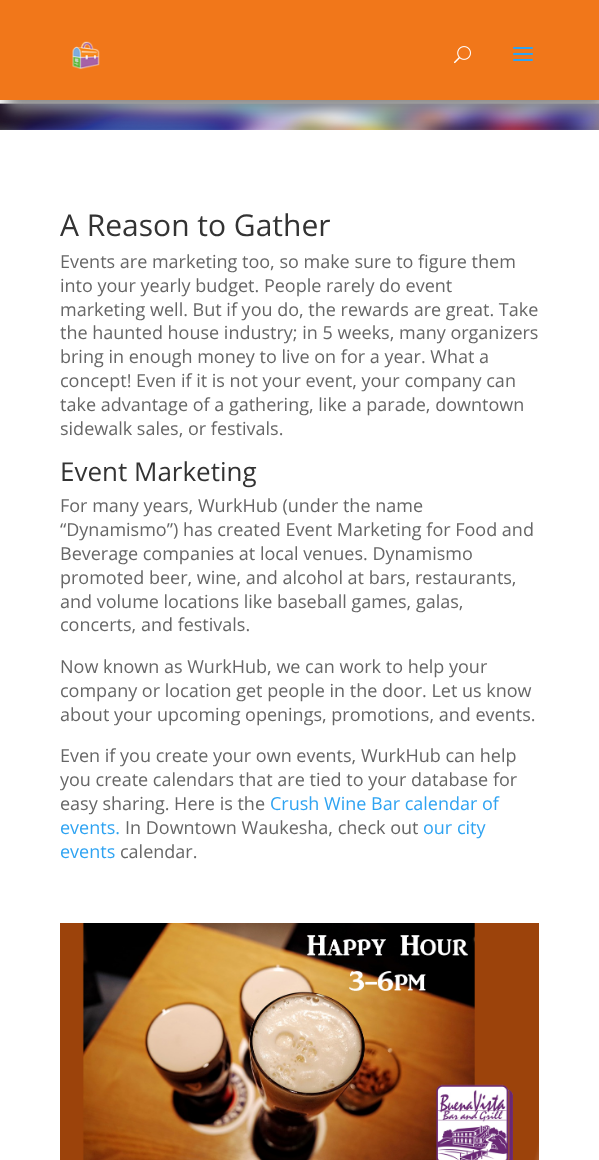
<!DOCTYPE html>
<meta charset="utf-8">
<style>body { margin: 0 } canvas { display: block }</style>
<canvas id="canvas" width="599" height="1160"></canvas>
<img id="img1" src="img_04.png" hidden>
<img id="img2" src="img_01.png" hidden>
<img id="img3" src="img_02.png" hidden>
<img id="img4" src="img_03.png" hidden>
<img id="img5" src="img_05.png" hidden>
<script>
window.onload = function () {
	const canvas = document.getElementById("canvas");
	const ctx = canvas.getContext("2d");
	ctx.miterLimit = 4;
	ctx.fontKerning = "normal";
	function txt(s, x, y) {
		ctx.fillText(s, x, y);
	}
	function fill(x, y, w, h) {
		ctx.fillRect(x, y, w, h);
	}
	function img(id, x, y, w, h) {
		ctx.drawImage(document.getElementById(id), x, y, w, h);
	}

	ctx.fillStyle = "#FFFFFF";
	fill(0, 0, 599, 1160);
	img("img1", 0, 103, 599, 27);
	ctx.fillStyle = "#888888";
	ctx.filter = "blur(7.5px)";
	ctx.beginPath();
	ctx.rect(7, 10, 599, 100);
	ctx.fill();
	ctx.filter = "none";
	ctx.fillStyle = "#F1771A";
	fill(0, 0, 599, 100);
	img("img2", 72, 41, 28, 29);
	img("img3", 454, 46, 17, 18);
	img("img4", 513, 47, 20, 14);
	img("img5", 60, 923, 479, 237);
	ctx.font = "30px Open Sans";
	ctx.fillStyle = "#333333";
	txt("A Reason to Gather", 60, 236);
	ctx.font = "18px Open Sans";
	ctx.fillStyle = "#666666";
	txt("Events are marketing too, so make sure to figure them", 60, 268);
	txt("into your yearly budget. People rarely do event", 60, 292);
	txt("marketing well. But if you do, the rewards are great. Take", 60, 316);
	txt("the haunted house industry; in 5 weeks, many organizers", 60, 339);
	txt("bring in enough money to live on for a year. What a", 60, 363);
	txt("concept! Even if it is not your event, your company can", 60, 387);
	txt("take advantage of a gathering, like a parade, downtown", 60, 411);
	txt("sidewalk sales, or festivals.", 60, 435);
	ctx.font = "26px Open Sans";
	ctx.fillStyle = "#333333";
	txt("Event Marketing", 60, 481);
	ctx.font = "18px Open Sans";
	ctx.fillStyle = "#666666";
	txt("For many years, WurkHub (under the name", 60, 512);
	txt("“Dynamismo”) has created Event Marketing for Food and", 60, 536);
	txt("Beverage companies at local venues. Dynamismo", 60, 560);
	txt("promoted beer, wine, and alcohol at bars, restaurants,", 60, 584);
	txt("and volume locations like baseball games, galas,", 60, 608);
	txt("concerts, and festivals.", 60, 631);
	txt("Now known as WurkHub, we can work to help your", 60, 673);
	txt("company or location get people in the door. Let us know", 60, 697);
	txt("about your upcoming openings, promotions, and events.", 60, 721);
	txt("Even if you create your own events, WurkHub can help", 60, 762);
	txt("you create calendars that are tied to your database for", 60, 786);
	txt("easy sharing. Here is the", 60, 810);
	ctx.fillStyle = "#2EA3F2";
	txt("Crush Wine Bar calendar of", 270, 810);
	txt("events.", 60, 834);
	ctx.fillStyle = "#666666";
	txt("In Downtown Waukesha, check out", 125, 834);
	ctx.fillStyle = "#2EA3F2";
	txt("our city", 423, 834);
	txt("events", 60, 858);
	ctx.fillStyle = "#666666";
	txt("calendar.", 120, 858);
};
</script>
